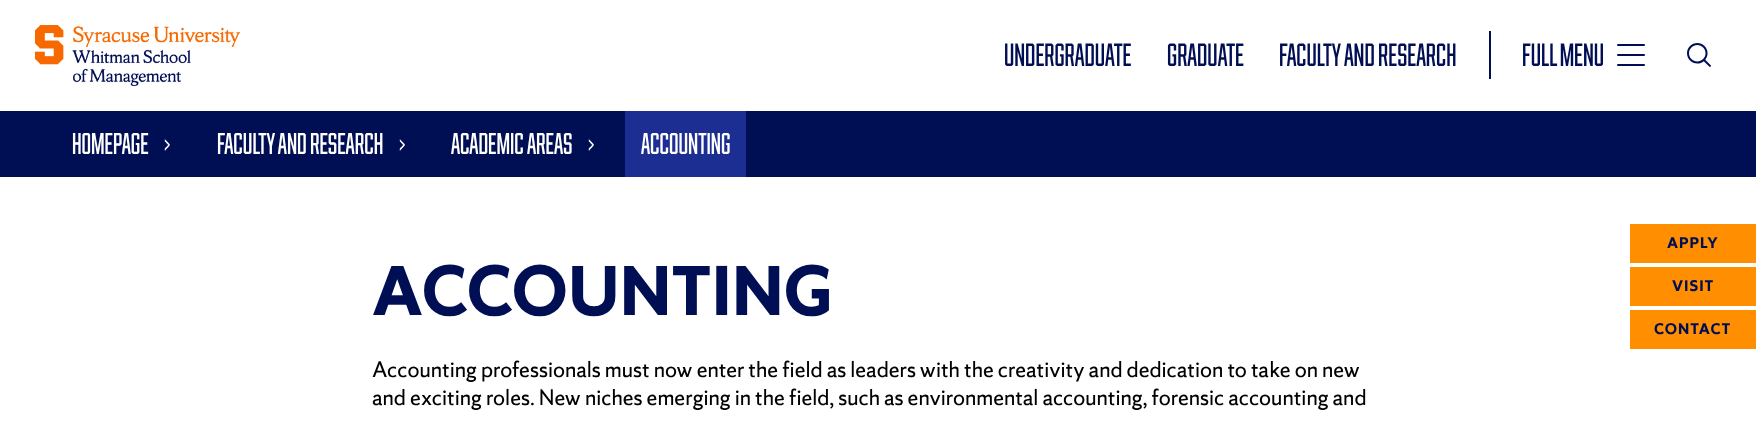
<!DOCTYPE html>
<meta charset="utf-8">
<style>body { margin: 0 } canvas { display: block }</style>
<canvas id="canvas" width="1756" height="424"></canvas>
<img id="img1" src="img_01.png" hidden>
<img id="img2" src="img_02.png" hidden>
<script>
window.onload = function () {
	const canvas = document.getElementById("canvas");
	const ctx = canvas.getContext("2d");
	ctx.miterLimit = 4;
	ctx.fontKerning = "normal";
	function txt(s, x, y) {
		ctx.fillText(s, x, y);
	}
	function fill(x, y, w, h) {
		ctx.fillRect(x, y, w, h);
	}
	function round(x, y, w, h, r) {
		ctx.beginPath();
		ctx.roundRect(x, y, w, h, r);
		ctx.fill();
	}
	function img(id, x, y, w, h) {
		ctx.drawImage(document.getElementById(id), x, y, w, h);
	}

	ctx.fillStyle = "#FFFFFF";
	fill(0, 0, 1756, 424);
	ctx.fillStyle = "#000E54";
	fill(0, 111, 1756, 66);
	ctx.fillStyle = "#1D2E93";
	fill(625, 111, 121, 66);
	img("img1", 35, 25, 205, 61);
	ctx.fillStyle = "#000E54";
	fill(1489, 31, 2, 48);
	round(1617, 44, 28, 2, 1);
	round(1617, 54, 28, 2, 1);
	round(1617, 64, 28, 2, 1);
	img("img2", 1687, 43, 24, 24);
	ctx.fillStyle = "#FF8E00";
	fill(1630, 224, 126, 39);
	fill(1630, 267, 126, 39);
	fill(1630, 310, 126, 39);
	ctx.font = "500 30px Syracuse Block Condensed";
	ctx.fillStyle = "#FFFFFF";
	txt("Homepage", 72, 154);
	ctx.font = "300 44px Syracuse Block Condensed";
	txt("›", 164, 159);
	ctx.font = "500 30px Syracuse Block Condensed";
	txt("Faculty and Research", 217, 154);
	ctx.font = "300 44px Syracuse Block Condensed";
	txt("›", 399, 159);
	ctx.font = "500 30px Syracuse Block Condensed";
	txt("Academic Areas", 451, 154);
	ctx.font = "300 44px Syracuse Block Condensed";
	txt("›", 588, 159);
	ctx.font = "500 30px Syracuse Block Condensed";
	txt("Accounting", 641, 154);
	ctx.font = "bold 62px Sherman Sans";
	ctx.fillStyle = "#000E54";
	txt("ACCOUNTING", 372, 315);
	ctx.font = "20px Sherman Sans";
	ctx.fillStyle = "#000000";
	txt("Accounting professionals must now enter the field as leaders with the creativity and dedication to take on new", 372, 377);
	txt("and exciting roles. New niches emerging in the field, such as environmental accounting, forensic accounting and", 372, 405);
	ctx.font = "500 32px Syracuse Block Condensed";
	ctx.fillStyle = "#000E54";
	txt("UNDERGRADUATE", 1004, 66);
	txt("GRADUATE", 1167, 66);
	txt("FACULTY AND RESEARCH", 1279, 66);
	txt("Full Menu", 1522, 66);
	ctx.letterSpacing = "1px";
	ctx.font = "bold 13.5px Sherman Sans";
	txt("APPLY", 1667, 248);
	txt("VISIT", 1672, 291);
	txt("CONTACT", 1654, 334);
};
</script>
